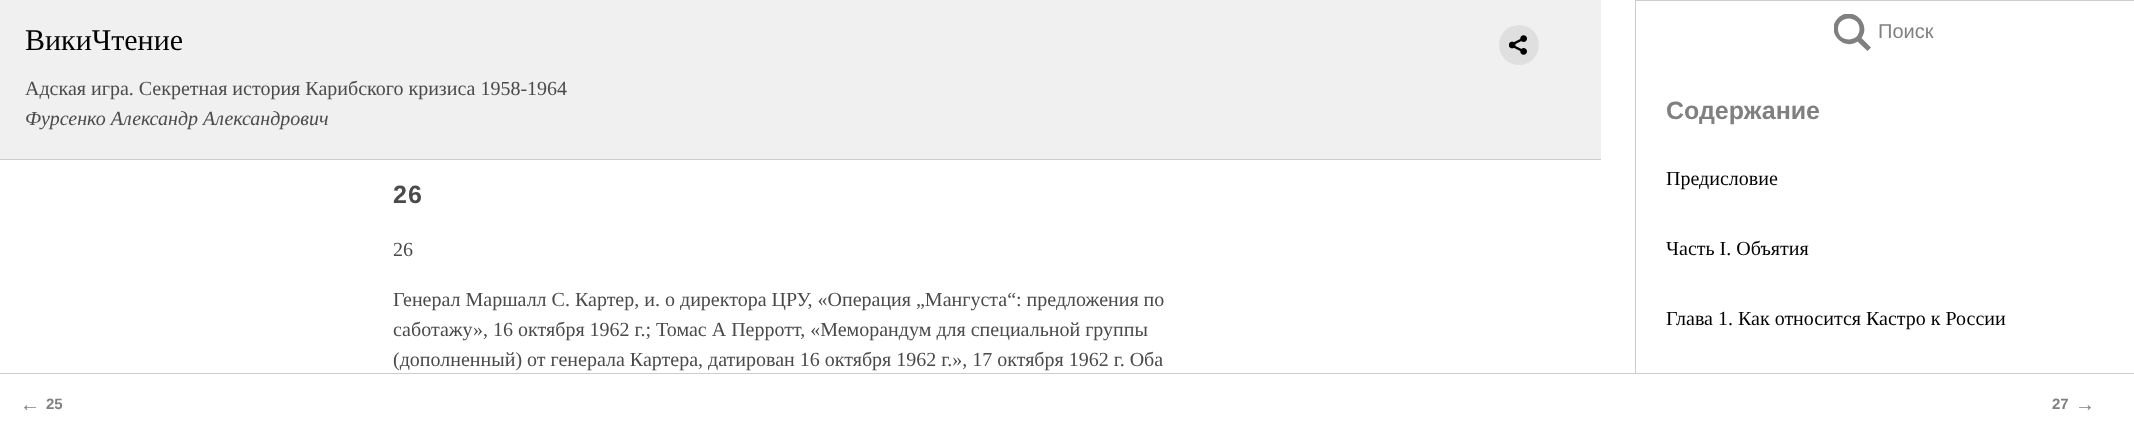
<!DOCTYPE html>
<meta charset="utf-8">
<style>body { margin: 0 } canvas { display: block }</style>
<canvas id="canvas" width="2134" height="435"></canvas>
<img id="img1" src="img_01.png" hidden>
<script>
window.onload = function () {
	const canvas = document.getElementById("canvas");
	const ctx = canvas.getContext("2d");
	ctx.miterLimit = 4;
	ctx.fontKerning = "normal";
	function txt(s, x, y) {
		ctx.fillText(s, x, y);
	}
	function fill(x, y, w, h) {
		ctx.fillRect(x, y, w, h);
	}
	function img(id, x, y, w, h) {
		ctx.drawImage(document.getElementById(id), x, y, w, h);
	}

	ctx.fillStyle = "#FFFFFF";
	fill(0, 0, 2134, 435);
	ctx.fillStyle = "#F0F0F0";
	fill(0, 0, 1601, 159);
	ctx.fillStyle = "#CCCCCC";
	fill(0, 159, 1601, 1);
	ctx.fillStyle = "#DFDFDF";
	ctx.beginPath();
	ctx.arc(1519, 45, 20, 0, Math.PI * 2);
	ctx.fill();
	img("img1", 1509, 35, 18, 20);
	ctx.strokeStyle = "#CCCCCC";
	ctx.strokeRect(1635.5, 0.5, 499, 434);
	ctx.save();
	ctx.beginPath();
	ctx.rect(1834, 14, 37, 37);
	ctx.clip();
	ctx.fillStyle = "#808080";
	ctx.beginPath();
	ctx.moveTo(1871, 47.5);
	ctx.lineTo(1861.5, 38);
	ctx.bezierCurveTo(1872, 23, 1851.5, 5, 1838, 18);
	ctx.bezierCurveTo(1825, 31.5, 1843, 51.5, 1857.5, 41.5);
	ctx.lineTo(1867.5, 51);
	ctx.closePath();
	ctx.moveTo(1838, 29);
	ctx.bezierCurveTo(1838, 15, 1859.5, 15, 1859.5, 29);
	ctx.bezierCurveTo(1859.5, 43, 1838, 43, 1838, 29);
	ctx.closePath();
	ctx.fill();
	ctx.restore();
	ctx.fillStyle = "#FFFFFF";
	fill(1635, 374, 499, 61);
	ctx.fillStyle = "#CCCCCC";
	fill(0, 373, 2134, 1);
	ctx.font = "30px Liberation Serif";
	ctx.fillStyle = "#000000";
	txt("ВикиЧтение", 25, 50);
	ctx.font = "20px Liberation Serif";
	ctx.fillStyle = "#4A4A4A";
	txt("Адская игра. Секретная история Карибского кризиса 1958-1964", 25, 95);
	ctx.font = "italic 20px Liberation Serif";
	txt("Фурсенко Александр Александрович", 25, 125);
	ctx.font = "20px Liberation Sans";
	ctx.fillStyle = "#808080";
	txt("Поиск", 1878, 38);
	ctx.font = "bold 25px Liberation Sans";
	txt("Содержание", 1666, 119);
	ctx.font = "20px Liberation Serif";
	ctx.fillStyle = "#000000";
	txt("Предисловие", 1666, 185);
	txt("Часть I. Объятия", 1666, 255);
	txt("Глава 1. Как относится Кастро к России", 1666, 325);
	ctx.letterSpacing = "1px";
	ctx.font = "bold 25px Liberation Sans";
	ctx.fillStyle = "#4A4A4A";
	txt("26", 393, 203);
	ctx.letterSpacing = "0px";
	ctx.font = "20px Liberation Serif";
	txt("26", 393, 256);
	txt("Генерал Маршалл С. Картер, и. о директора ЦРУ, «Операция „Мангуста“: предложения по", 393, 306);
	txt("саботажу», 16 октября 1962 г.; Томас А Перротт, «Меморандум для специальной группы", 393, 336);
	txt("(дополненный) от генерала Картера, датирован 16 октября 1962 г.», 17 октября 1962 г. Оба", 393, 366);
	ctx.font = "bold 20px Liberation Sans";
	ctx.fillStyle = "#808080";
	txt("←", 20, 411);
	ctx.font = "bold 15px Liberation Sans";
	txt("25", 46, 409);
	txt("27", 2052, 409);
	ctx.font = "bold 20px Liberation Sans";
	txt("→", 2075, 411);
};
</script>
